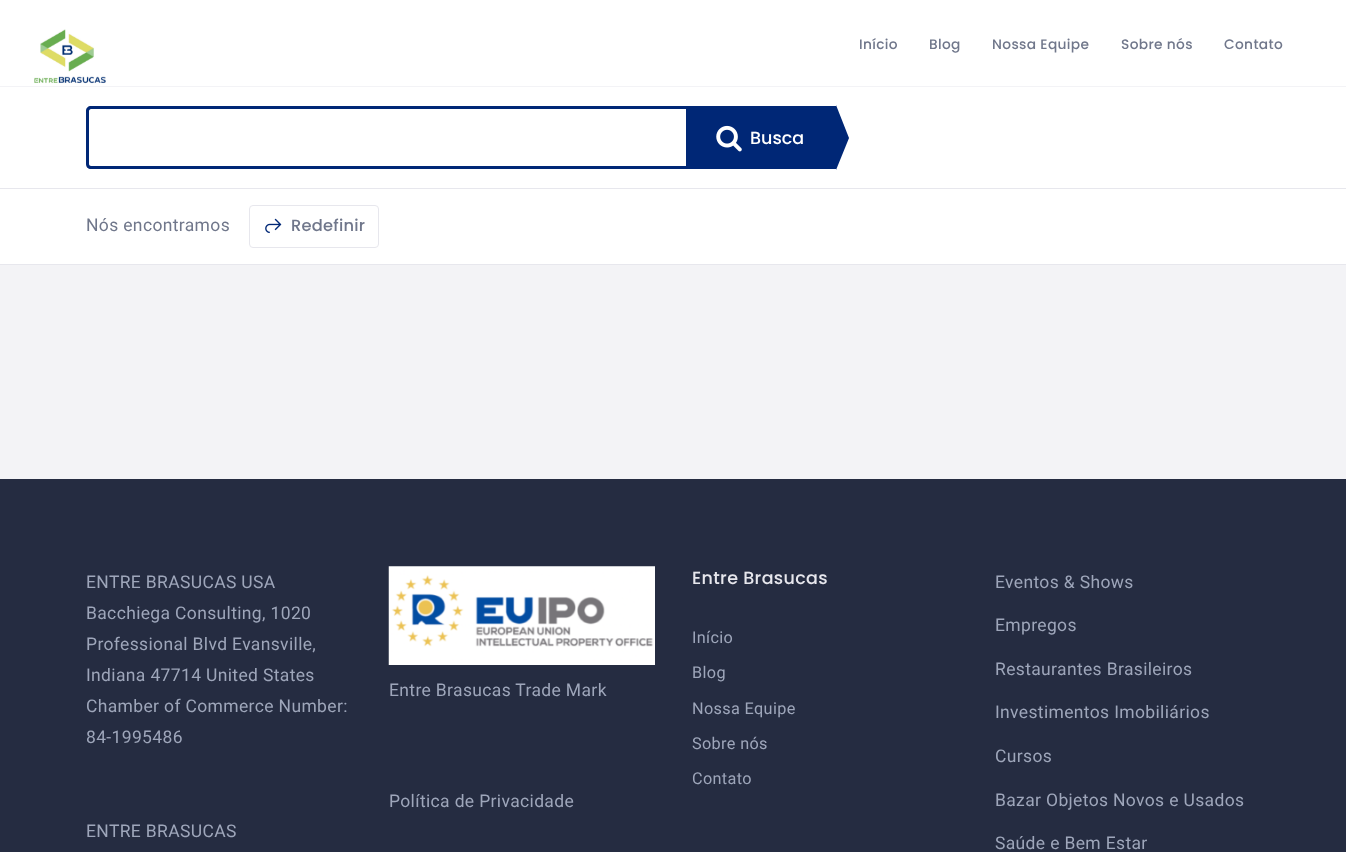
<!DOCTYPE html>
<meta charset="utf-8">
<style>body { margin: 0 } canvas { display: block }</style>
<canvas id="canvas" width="1346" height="852"></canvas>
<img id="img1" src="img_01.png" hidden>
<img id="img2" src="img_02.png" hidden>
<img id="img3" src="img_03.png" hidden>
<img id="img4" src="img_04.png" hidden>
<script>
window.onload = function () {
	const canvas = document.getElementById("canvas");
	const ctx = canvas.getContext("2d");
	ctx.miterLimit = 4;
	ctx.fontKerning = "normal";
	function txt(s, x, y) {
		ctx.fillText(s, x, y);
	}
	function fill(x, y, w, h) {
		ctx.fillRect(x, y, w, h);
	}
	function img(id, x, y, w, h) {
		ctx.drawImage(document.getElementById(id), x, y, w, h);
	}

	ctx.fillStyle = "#FFFFFF";
	fill(0, 0, 1346, 852);
	img("img1", 34, 29, 72, 55);
	ctx.fillStyle = "#F3F3F6";
	fill(0, 86, 1346, 1);
	ctx.fillStyle = "#E7E7ED";
	fill(0, 188, 1346, 1);
	ctx.fillStyle = "#002776";
	ctx.beginPath();
	ctx.moveTo(91, 106);
	ctx.lineTo(686, 106);
	ctx.lineTo(686, 169);
	ctx.lineTo(91, 169);
	ctx.bezierCurveTo(88, 169, 86, 167, 86, 164);
	ctx.lineTo(86, 111);
	ctx.bezierCurveTo(86, 108, 88, 106, 91, 106);
	ctx.closePath();
	ctx.moveTo(91, 109);
	ctx.lineTo(686, 109);
	ctx.lineTo(686, 166);
	ctx.lineTo(91, 166);
	ctx.bezierCurveTo(90, 166, 89, 165, 89, 164);
	ctx.lineTo(89, 111);
	ctx.bezierCurveTo(89, 110, 90, 109, 91, 109);
	ctx.closePath();
	ctx.fill("evenodd");
	fill(686, 106, 150, 63);
	img("img2", 716, 125, 26, 27);
	ctx.beginPath();
	ctx.moveTo(836, 170);
	ctx.lineTo(836, 105);
	ctx.lineTo(849, 138);
	ctx.closePath();
	ctx.fill();
	ctx.fillStyle = "#F3F3F6";
	fill(0, 265, 1346, 214);
	ctx.fillStyle = "#E7E7ED";
	fill(0, 264, 1346, 1);
	ctx.beginPath();
	ctx.roundRect(249.5, 205.5, 129, 42, 3.5);
	ctx.strokeStyle = "#E7E7ED";
	ctx.stroke();
	img("img3", 265, 218, 17, 16);
	ctx.fillStyle = "#252C41";
	fill(0, 479, 1346, 373);
	img("img4", 388, 566, 267, 99);
	ctx.letterSpacing = "0.35px";
	ctx.font = "500 13.75px Poppins";
	ctx.fillStyle = "#70778B";
	txt("Início", 859, 49);
	txt("Blog", 929, 49);
	txt("Nossa Equipe", 992, 49);
	txt("Sobre nós", 1121, 49);
	txt("Contato", 1224, 49);
	ctx.letterSpacing = "0px";
	ctx.font = "500 17.5px Poppins";
	ctx.fillStyle = "#FFFFFF";
	txt("Busca", 750, 144);
	ctx.letterSpacing = "0.35px";
	ctx.font = "17.5px Roboto";
	ctx.fillStyle = "#70778B";
	txt("Nós encontramos", 86, 231);
	ctx.letterSpacing = "0.25px";
	ctx.font = "500 16.25px Poppins";
	txt("Redefinir", 291, 231);
	ctx.letterSpacing = "0.35px";
	ctx.font = "17.5px Roboto";
	ctx.fillStyle = "#9EA6BA";
	txt("ENTRE BRASUCAS USA", 86, 588);
	txt("Bacchiega Consulting, 1020", 86, 619);
	txt("Professional Blvd Evansville,", 86, 650);
	txt("Indiana 47714 United States", 86, 681);
	txt("Chamber of Commerce Number:", 86, 712);
	txt("84-1995486", 86, 743);
	txt("ENTRE BRASUCAS", 86, 837);
	txt("Entre Brasucas Trade Mark", 389, 696);
	txt("Política de Privacidade", 389, 807);
	ctx.font = "500 17.5px Poppins";
	ctx.fillStyle = "#E7E7ED";
	txt("Entre Brasucas", 692, 584);
	ctx.font = "16.25px Roboto";
	ctx.fillStyle = "#9EA6BA";
	txt("Início", 692, 643);
	txt("Blog", 692, 678);
	txt("Nossa Equipe", 692, 714);
	txt("Sobre nós", 692, 749);
	txt("Contato", 692, 784);
	ctx.font = "17.5px Roboto";
	txt("Eventos & Shows", 995, 588);
	txt("Empregos", 995, 631);
	txt("Restaurantes Brasileiros", 995, 675);
	txt("Investimentos Imobiliários", 995, 718);
	txt("Cursos", 995, 762);
	txt("Bazar Objetos Novos e Usados", 995, 806);
	txt("Saúde e Bem Estar", 995, 849);
};
</script>
